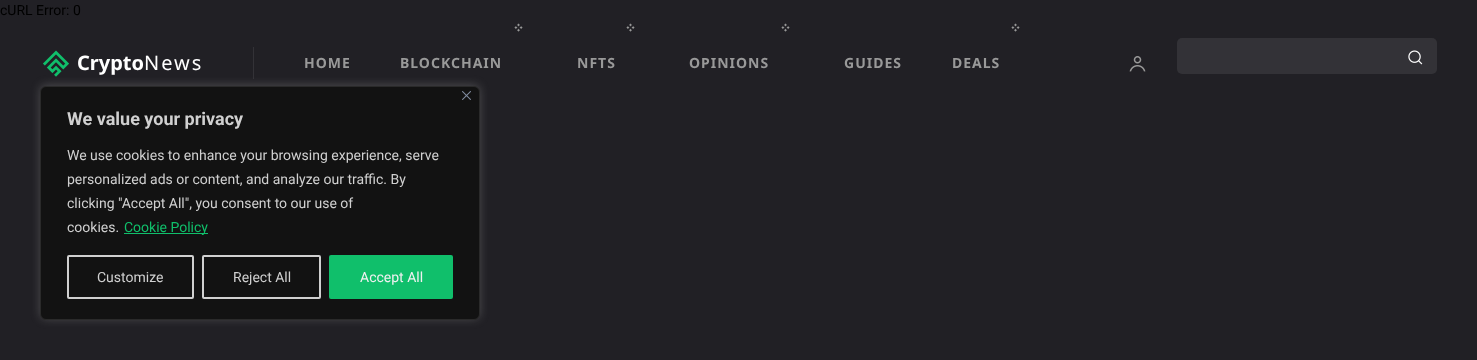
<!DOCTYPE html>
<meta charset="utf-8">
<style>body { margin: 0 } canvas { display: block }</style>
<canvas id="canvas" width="1477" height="360"></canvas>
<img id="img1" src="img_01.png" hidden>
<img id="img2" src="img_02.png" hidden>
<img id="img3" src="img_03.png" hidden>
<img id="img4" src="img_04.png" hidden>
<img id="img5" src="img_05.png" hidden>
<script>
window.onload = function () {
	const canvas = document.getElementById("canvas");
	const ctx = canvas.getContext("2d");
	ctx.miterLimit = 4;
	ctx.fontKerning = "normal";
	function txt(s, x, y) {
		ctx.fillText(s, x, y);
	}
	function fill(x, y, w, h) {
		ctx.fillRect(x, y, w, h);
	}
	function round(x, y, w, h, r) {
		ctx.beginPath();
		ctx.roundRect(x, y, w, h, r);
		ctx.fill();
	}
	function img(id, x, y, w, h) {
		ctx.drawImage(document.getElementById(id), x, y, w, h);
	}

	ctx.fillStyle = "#212025";
	fill(0, 0, 1477, 360);
	ctx.fillStyle = "#333237";
	fill(253, 47, 1, 32);
	img("img1", 43, 50, 26, 27);
	img("img2", 514, 23, 9, 9);
	img("img2", 626, 23, 9, 9);
	img("img2", 781, 23, 9, 9);
	img("img2", 1011, 23, 9, 9);
	img("img3", 1129, 56, 17, 16);
	round(1177, 38, 260, 36, 5);
	img("img4", 1408, 50, 15, 15);
	ctx.fillStyle = "rgba(172, 171, 171, 0.3)";
	ctx.filter = "blur(5px)";
	ctx.beginPath();
	ctx.roundRect(40, 85, 440, 234, 6);
	ctx.fill();
	ctx.filter = "none";
	ctx.fillStyle = "#121212";
	ctx.beginPath();
	ctx.roundRect(40.5, 86.5, 439, 233, 5.5);
	ctx.fill();
	ctx.strokeStyle = "#2A2A2A";
	ctx.stroke();
	img("img5", 462, 91, 9, 9);
	ctx.fillStyle = "#10BF6B";
	fill(124, 233, 84, 1);
	ctx.beginPath();
	ctx.roundRect(68, 256, 125, 42, 1);
	ctx.strokeStyle = "#D0D0D0";
	ctx.lineWidth = 2;
	ctx.stroke();
	ctx.beginPath();
	ctx.roundRect(203, 256, 117, 42, 1);
	ctx.stroke();
	ctx.beginPath();
	ctx.roundRect(330, 256, 122, 42, 1);
	ctx.fill();
	ctx.strokeStyle = "#10BF6B";
	ctx.stroke();
	ctx.font = "14px Roboto";
	ctx.fillStyle = "#000000";
	txt("cURL Error: 0", 0, 15);
	ctx.font = "bold 20px Noto Sans";
	ctx.fillStyle = "#FFFFFF";
	txt("Crypto", 77, 70);
	ctx.letterSpacing = "2px";
	ctx.font = "20px Noto Sans";
	txt("News", 144, 70);
	ctx.letterSpacing = "1px";
	ctx.font = "bold 14px Noto Sans";
	ctx.fillStyle = "#999999";
	txt("HOME", 304, 68);
	txt("BLOCKCHAIN", 400, 68);
	txt("NFTS", 577, 68);
	txt("OPINIONS", 689, 68);
	txt("GUIDES", 844, 68);
	txt("DEALS", 952, 68);
	ctx.letterSpacing = "0px";
	ctx.font = "bold 18px Roboto";
	ctx.fillStyle = "#D0D0D0";
	txt("We value your privacy", 67, 125);
	ctx.font = "14px Roboto";
	txt("We use cookies to enhance your browsing experience, serve", 67, 160);
	txt("personalized ads or content, and analyze our traffic. By", 67, 184);
	txt("clicking \"Accept All\", you consent to our use of", 67, 208);
	txt("cookies.", 67, 232);
	ctx.fillStyle = "#10BF6B";
	txt("Cookie Policy", 124, 232);
	ctx.fillStyle = "#D0D0D0";
	txt("Customize", 97, 282);
	txt("Reject All", 233, 282);
	ctx.fillStyle = "#F1F1F1";
	txt("Accept All", 360, 282);
};
</script>
